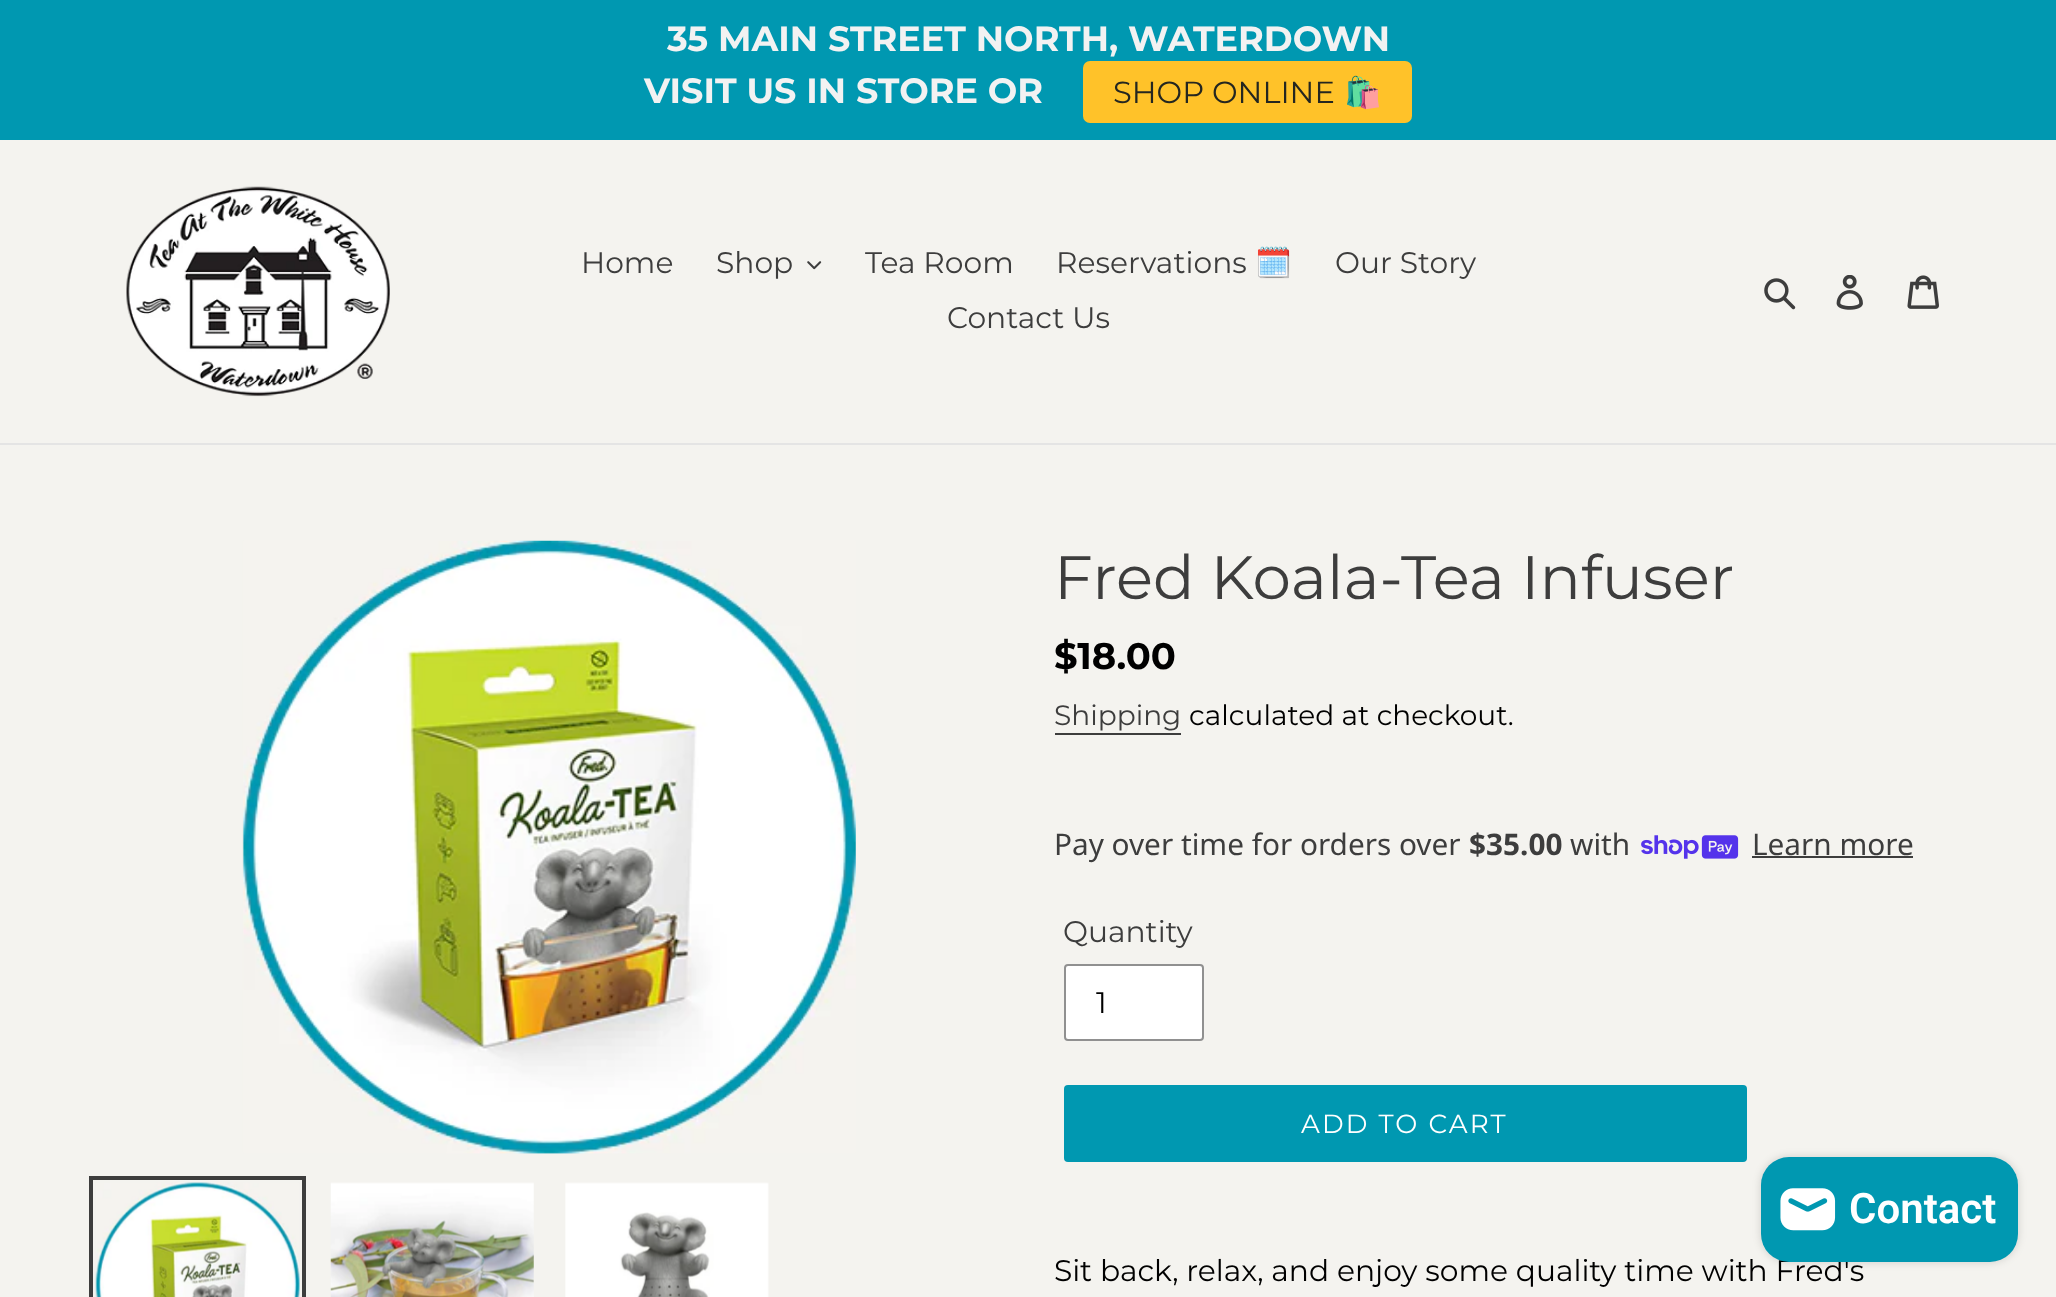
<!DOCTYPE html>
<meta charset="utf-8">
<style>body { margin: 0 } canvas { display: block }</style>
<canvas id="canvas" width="2056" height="1297"></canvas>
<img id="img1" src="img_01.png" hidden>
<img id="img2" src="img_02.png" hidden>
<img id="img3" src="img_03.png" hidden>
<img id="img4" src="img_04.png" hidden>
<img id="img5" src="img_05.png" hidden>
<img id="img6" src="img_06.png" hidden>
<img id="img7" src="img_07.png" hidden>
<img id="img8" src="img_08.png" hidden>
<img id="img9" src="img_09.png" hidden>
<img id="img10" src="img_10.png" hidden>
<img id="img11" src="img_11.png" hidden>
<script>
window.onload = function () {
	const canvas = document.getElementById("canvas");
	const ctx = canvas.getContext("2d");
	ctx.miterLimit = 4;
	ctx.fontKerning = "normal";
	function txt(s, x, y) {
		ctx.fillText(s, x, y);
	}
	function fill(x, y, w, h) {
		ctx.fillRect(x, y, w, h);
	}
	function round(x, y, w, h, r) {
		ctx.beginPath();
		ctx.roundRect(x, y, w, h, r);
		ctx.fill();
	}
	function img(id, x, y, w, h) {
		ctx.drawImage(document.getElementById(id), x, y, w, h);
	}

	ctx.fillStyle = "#F4F3EF";
	fill(0, 0, 2056, 1297);
	ctx.fillStyle = "#0098B1";
	fill(0, 0, 2056, 140);
	ctx.fillStyle = "#FFC229";
	round(1083, 61, 329, 62, 7);
	ctx.fillStyle = "#E4E4E4";
	fill(0, 443, 2056, 2);
	img("img1", 126, 186, 264, 211);
	img("img2", 807, 261, 15, 9);
	img("img3", 1764, 278, 32, 32);
	img("img4", 1836, 275, 27, 35);
	img("img5", 1907, 275, 32, 34);
	img("img6", 242, 540, 614, 614);
	ctx.strokeStyle = "#3D3D3D";
	ctx.lineWidth = 4;
	ctx.strokeRect(91, 1178, 213, 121);
	img("img7", 95, 1182, 205, 115);
	img("img8", 330, 1182, 204, 115);
	img("img9", 565, 1182, 204, 115);
	ctx.fillStyle = "#3D3D3D";
	fill(1055, 733, 126, 2);
	img("img10", 1641, 835, 98, 24);
	fill(1752, 856, 161, 2);
	ctx.fillStyle = "#FFFFFF";
	ctx.beginPath();
	ctx.roundRect(1065, 965, 138, 75, 3);
	ctx.fill();
	ctx.strokeStyle = "#909090";
	ctx.lineWidth = 2;
	ctx.stroke();
	ctx.fillStyle = "#0098B1";
	round(1064, 1085, 683, 77, 4);
	ctx.fillStyle = "rgba(0, 0, 0, 0.15)";
	ctx.filter = "blur(4.5px)";
	ctx.beginPath();
	ctx.roundRect(1761, 1157, 257, 105, 28);
	ctx.fill();
	ctx.filter = "none";
	ctx.font = "bold 35px Montserrat";
	ctx.fillStyle = "#F2F2F2";
	txt("35 MAIN STREET NORTH, WATERDOWN", 667, 51);
	txt("VISIT US IN STORE OR", 644, 103);
	ctx.font = "30.5px Montserrat";
	ctx.fillStyle = "#242620";
	txt("SHOP ONLINE", 1113, 103);
	ctx.font = "30.5px Noto Color Emoji";
	txt("🛍️", 1344, 103);
	ctx.font = "29.75px Montserrat";
	ctx.fillStyle = "#3D3D3D";
	txt("Home", 581, 273);
	txt("Shop", 716, 273);
	txt("Tea Room", 865, 273);
	txt("Reservations", 1056, 273);
	ctx.font = "29.75px Noto Color Emoji";
	txt("🗓️", 1255, 273);
	ctx.font = "29.75px Montserrat";
	txt("Our Story", 1335, 273);
	txt("Contact Us", 947, 328);
	ctx.font = "61.25px Montserrat";
	txt("Fred Koala-Tea Infuser", 1054, 599);
	ctx.font = "bold 37px Montserrat";
	ctx.fillStyle = "#000000";
	txt("$18.00", 1054, 669);
	ctx.font = "28px Montserrat";
	ctx.fillStyle = "#3D3D3D";
	txt("Shipping", 1054, 725);
	ctx.fillStyle = "#000000";
	txt("calculated at checkout.", 1189, 725);
	ctx.font = "29.75px Noto Sans";
	ctx.fillStyle = "#3D3D3D";
	txt("Pay over time for orders over", 1054, 855);
	ctx.font = "bold 29.75px Noto Sans";
	txt("$35.00", 1469, 855);
	ctx.font = "29.75px Noto Sans";
	txt("with", 1570, 855);
	txt("Learn more", 1752, 855);
	ctx.font = "29.75px Montserrat";
	txt("Quantity", 1063, 942);
	ctx.fillStyle = "#000000";
	txt("1", 1096, 1013);
	ctx.letterSpacing = "2.1px";
	ctx.font = "26.25px Montserrat";
	ctx.fillStyle = "#FFFFFF";
	txt("ADD TO CART", 1301, 1133);
	ctx.letterSpacing = "0px";
	ctx.font = "29.75px Montserrat";
	ctx.fillStyle = "#000000";
	txt("Sit back, relax, and enjoy some quality time with Fred's", 1054, 1281);
	ctx.fillStyle = "#0098B1";
	round(1761, 1157, 257, 105, 28);
	img("img11", 1780, 1188, 56, 43);
	ctx.font = "600 42px Roboto";
	ctx.fillStyle = "#FFFFFF";
	txt("Contact", 1849, 1223);
};
</script>
